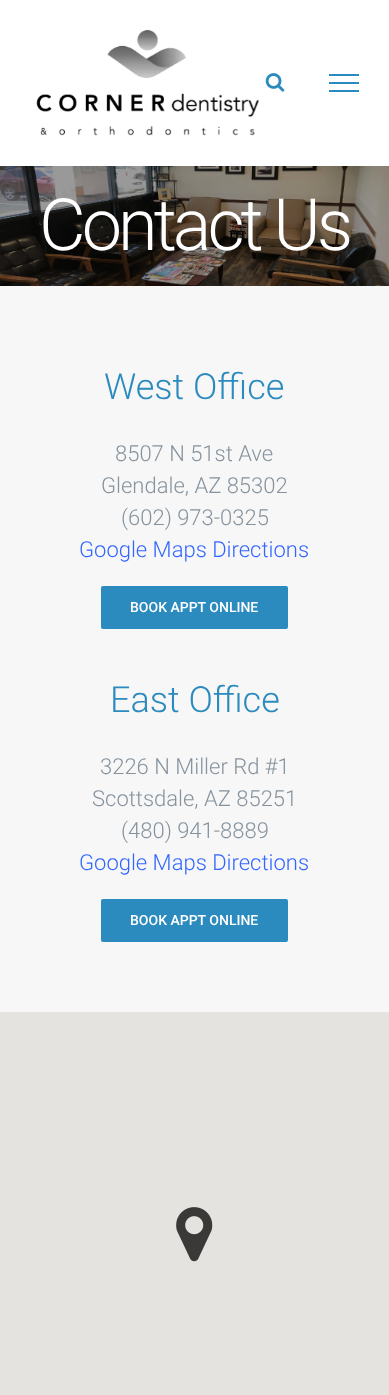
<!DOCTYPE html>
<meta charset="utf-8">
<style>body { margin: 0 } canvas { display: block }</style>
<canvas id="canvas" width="389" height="1395"></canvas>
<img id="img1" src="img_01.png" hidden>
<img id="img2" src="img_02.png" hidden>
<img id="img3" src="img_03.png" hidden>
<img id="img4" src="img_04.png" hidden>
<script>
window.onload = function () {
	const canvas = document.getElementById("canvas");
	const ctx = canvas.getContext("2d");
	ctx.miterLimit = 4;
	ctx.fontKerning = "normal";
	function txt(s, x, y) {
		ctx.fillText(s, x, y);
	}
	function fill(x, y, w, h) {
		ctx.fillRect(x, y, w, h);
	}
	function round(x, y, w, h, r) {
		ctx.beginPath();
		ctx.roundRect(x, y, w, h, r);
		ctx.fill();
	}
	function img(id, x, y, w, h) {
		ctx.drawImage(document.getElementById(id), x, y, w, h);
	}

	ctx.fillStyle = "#FFFFFF";
	fill(0, 0, 389, 1395);
	img("img1", 36, 29, 223, 107);
	img("img2", 265, 73, 20, 19);
	ctx.fillStyle = "#2B8BBF";
	fill(329, 74, 30, 2);
	fill(329, 82, 30, 2);
	fill(329, 90, 30, 2);
	img("img3", 0, 166, 389, 120);
	ctx.fillStyle = "#F7F7F7";
	fill(0, 286, 389, 726);
	ctx.fillStyle = "#2B8BBF";
	round(101, 586, 187, 43, 2);
	round(101, 899, 187, 43, 2);
	ctx.fillStyle = "#E5E3DF";
	fill(0, 1012, 389, 383);
	img("img4", 176, 1207, 37, 55);
	ctx.letterSpacing = "-4px";
	ctx.font = "300 72px Roboto";
	ctx.fillStyle = "#FFFFFF";
	txt("Contact Us", 39, 250);
	ctx.letterSpacing = "0px";
	ctx.font = "300 36px Roboto";
	ctx.fillStyle = "#2B8BBF";
	txt("West Office", 104, 399);
	ctx.font = "300 22px Roboto";
	ctx.fillStyle = "#86939E";
	txt("8507 N 51st Ave", 115, 461);
	txt("Glendale, AZ 85302", 101, 493);
	txt("(602) 973-0325", 121, 525);
	ctx.fillStyle = "#3366FF";
	txt("Google Maps Directions", 79, 557);
	ctx.font = "500 14px Roboto";
	ctx.fillStyle = "#FFFFFF";
	txt("BOOK APPT ONLINE", 130, 612);
	ctx.font = "300 36px Roboto";
	ctx.fillStyle = "#2B8BBF";
	txt("East Office", 110, 712);
	ctx.font = "300 22px Roboto";
	ctx.fillStyle = "#86939E";
	txt("3226 N Miller Rd #1", 100, 774);
	txt("Scottsdale, AZ 85251", 92, 806);
	txt("(480) 941-8889", 121, 838);
	ctx.fillStyle = "#3366FF";
	txt("Google Maps Directions", 79, 870);
	ctx.font = "500 14px Roboto";
	ctx.fillStyle = "#FFFFFF";
	txt("BOOK APPT ONLINE", 130, 925);
};
</script>
